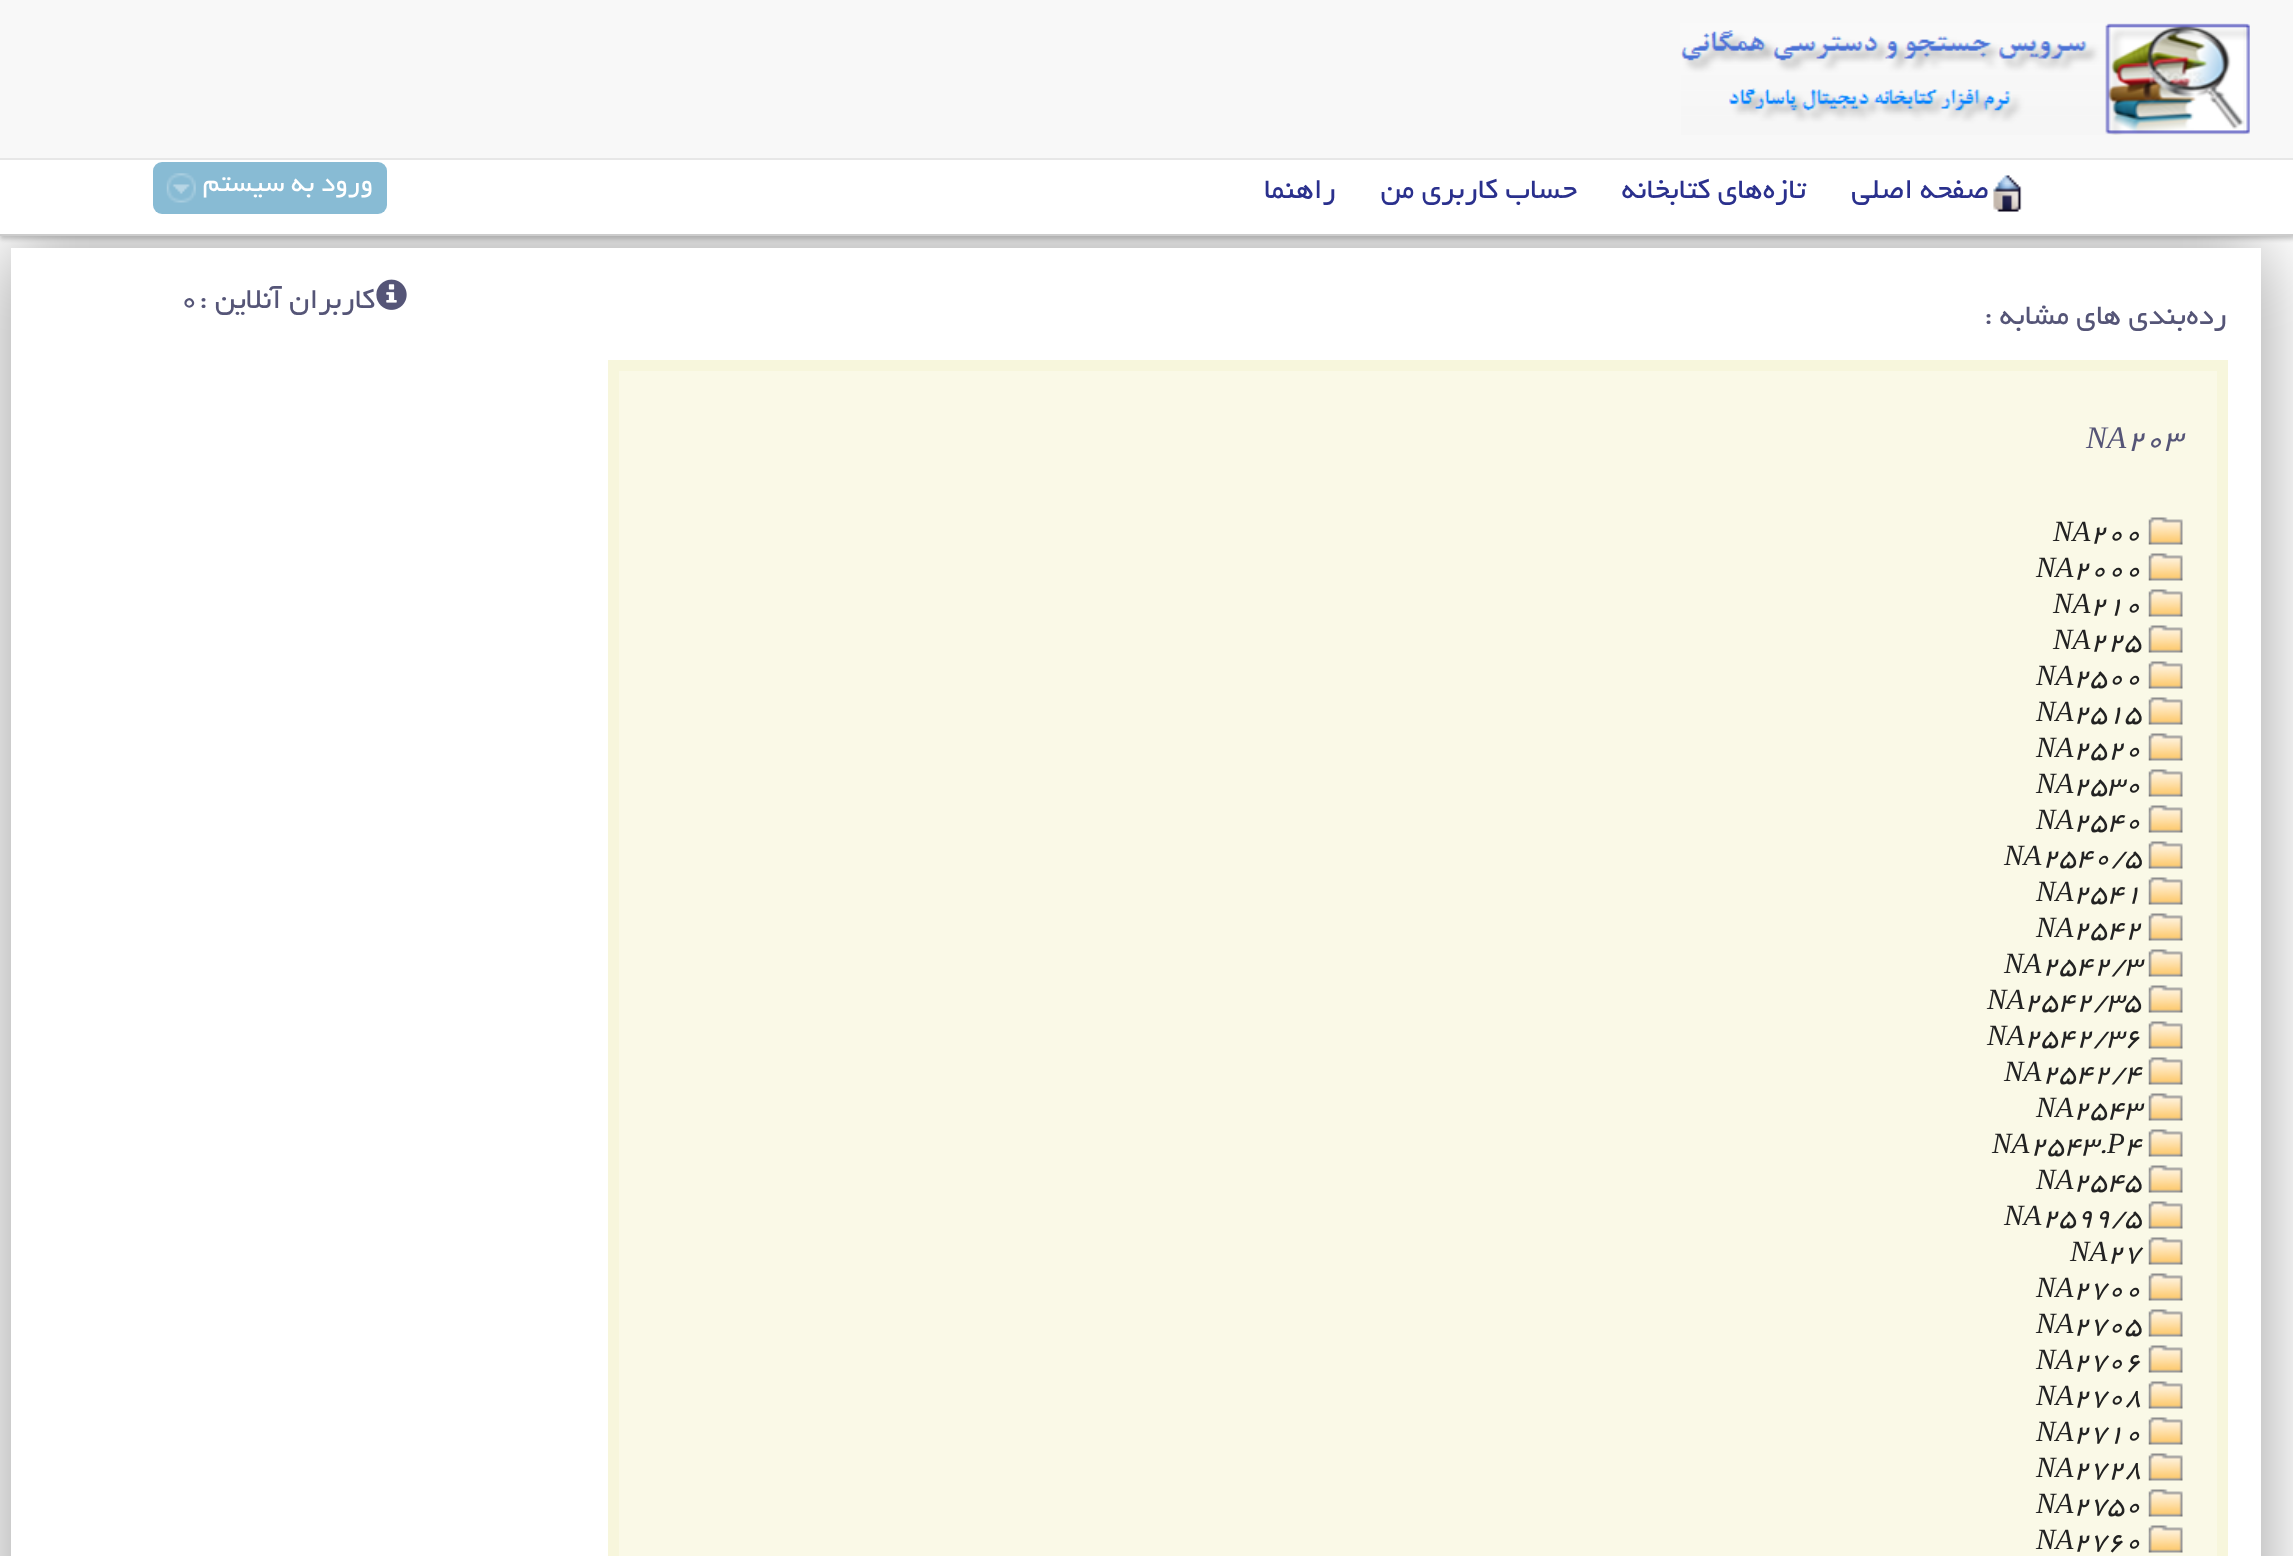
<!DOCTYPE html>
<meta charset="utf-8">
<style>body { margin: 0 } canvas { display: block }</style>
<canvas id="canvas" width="2293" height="1556"></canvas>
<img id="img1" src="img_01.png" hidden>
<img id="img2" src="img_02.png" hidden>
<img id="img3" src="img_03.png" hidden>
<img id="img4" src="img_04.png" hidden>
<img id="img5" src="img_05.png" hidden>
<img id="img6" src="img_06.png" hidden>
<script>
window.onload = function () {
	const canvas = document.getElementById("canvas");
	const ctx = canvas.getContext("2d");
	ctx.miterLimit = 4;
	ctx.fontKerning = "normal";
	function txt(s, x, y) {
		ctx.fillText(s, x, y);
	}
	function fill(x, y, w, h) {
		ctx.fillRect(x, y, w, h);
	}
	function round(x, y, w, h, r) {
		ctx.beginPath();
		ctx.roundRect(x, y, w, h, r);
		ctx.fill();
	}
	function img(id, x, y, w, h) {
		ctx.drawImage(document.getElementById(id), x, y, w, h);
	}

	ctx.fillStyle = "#FFFFFF";
	fill(0, 0, 2293, 1556);
	ctx.fillStyle = "#CCCCCC";
	ctx.filter = "blur(2px)";
	ctx.beginPath();
	ctx.rect(0, 160, 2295, 79);
	ctx.fill();
	ctx.filter = "none";
	ctx.save();
	ctx.beginPath();
	ctx.moveTo(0, 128);
	ctx.lineTo(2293, 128);
	ctx.lineTo(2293, 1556);
	ctx.lineTo(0, 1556);
	ctx.closePath();
	ctx.moveTo(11, 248);
	ctx.lineTo(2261, 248);
	ctx.lineTo(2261, 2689);
	ctx.lineTo(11, 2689);
	ctx.closePath();
	ctx.clip("evenodd");
	ctx.fillStyle = "rgba(0, 0, 0, 0.4)";
	ctx.filter = "blur(39.5px)";
	ctx.beginPath();
	ctx.rect(11, 248, 2250, 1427);
	ctx.fill();
	ctx.filter = "none";
	ctx.restore();
	ctx.fillStyle = "#F8F8F8";
	fill(0, 0, 2293, 158);
	ctx.fillStyle = "#E7E7E7";
	fill(0, 158, 2293, 2);
	img("img1", 1680, 23, 570, 112);
	ctx.fillStyle = "#FFFFFF";
	fill(0, 160, 2293, 74);
	ctx.fillStyle = "#CCCCCC";
	fill(0, 234, 2293, 2);
	ctx.fillStyle = "#88BBD4";
	round(153, 162, 234, 52, 9);
	img("img2", 166, 173, 30, 30);
	img("img3", 1993, 175, 29, 37);
	img("img4", 376, 279, 31, 31);
	ctx.fillStyle = "#FAF9E7";
	ctx.beginPath();
	ctx.rect(613.5, 365.5, 1609, 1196);
	ctx.fill();
	ctx.strokeStyle = "#F7F6DC";
	ctx.lineWidth = 11;
	ctx.stroke();
	img("img5", 2148, 517, 35, 28);
	img("img5", 2148, 553, 35, 28);
	img("img5", 2148, 589, 35, 28);
	img("img5", 2148, 625, 35, 28);
	img("img5", 2148, 661, 35, 28);
	img("img5", 2148, 697, 35, 28);
	img("img5", 2148, 733, 35, 28);
	img("img5", 2148, 769, 35, 28);
	img("img5", 2148, 805, 35, 28);
	img("img5", 2148, 841, 35, 28);
	img("img5", 2148, 877, 35, 28);
	img("img5", 2148, 913, 35, 28);
	img("img5", 2148, 949, 35, 28);
	img("img5", 2148, 985, 35, 28);
	img("img5", 2148, 1021, 35, 28);
	img("img5", 2148, 1057, 35, 28);
	img("img5", 2148, 1093, 35, 28);
	img("img5", 2148, 1129, 35, 28);
	img("img5", 2148, 1165, 35, 28);
	img("img5", 2148, 1201, 35, 28);
	img("img5", 2148, 1237, 35, 28);
	img("img5", 2148, 1273, 35, 28);
	img("img5", 2148, 1309, 35, 28);
	img("img5", 2148, 1345, 35, 28);
	img("img5", 2148, 1381, 35, 28);
	img("img5", 2148, 1417, 35, 28);
	img("img5", 2148, 1453, 35, 28);
	img("img5", 2148, 1489, 35, 28);
	img("img6", 2148, 1525, 35, 28);
	ctx.direction = "rtl";
	ctx.font = "29.25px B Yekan";
	ctx.fillStyle = "#FFFFFF";
	txt("ورود به سیستم", 373, 191);
	ctx.font = "31.5px B Yekan";
	ctx.fillStyle = "#2A308D";
	txt("راهنما", 1336, 198);
	txt("حساب کاربری من", 1577, 198);
	txt("تازه‌های کتابخانه", 1806, 198);
	txt("صفحه اصلی", 1989, 198);
	ctx.direction = "ltr";
	ctx.fillStyle = "#555577";
	txt("0", 180, 308);
	ctx.direction = "rtl";
	txt("کاربران آنلاین :", 375, 308);
	txt("رده‌بندی های مشابه :", 2227, 324);
	ctx.direction = "ltr";
	ctx.font = "italic 31.5px Liberation Serif";
	txt("NA", 2086, 448);
	ctx.font = "italic 31.5px B Yekan";
	txt("203", 2127, 448);
	ctx.font = "italic 29.25px Liberation Serif";
	ctx.fillStyle = "#222222";
	txt("NA", 2053, 541);
	ctx.font = "italic 29.25px B Yekan";
	txt("200", 2090, 541);
	ctx.font = "italic 29.25px Liberation Serif";
	txt("NA", 2036, 577);
	ctx.font = "italic 29.25px B Yekan";
	txt("2000", 2073, 577);
	ctx.font = "italic 29.25px Liberation Serif";
	txt("NA", 2053, 613);
	ctx.font = "italic 29.25px B Yekan";
	txt("210", 2090, 613);
	ctx.font = "italic 29.25px Liberation Serif";
	txt("NA", 2053, 649);
	ctx.font = "italic 29.25px B Yekan";
	txt("225", 2090, 649);
	ctx.font = "italic 29.25px Liberation Serif";
	txt("NA", 2036, 685);
	ctx.font = "italic 29.25px B Yekan";
	txt("2500", 2073, 685);
	ctx.font = "italic 29.25px Liberation Serif";
	txt("NA", 2036, 721);
	ctx.font = "italic 29.25px B Yekan";
	txt("2515", 2073, 721);
	ctx.font = "italic 29.25px Liberation Serif";
	txt("NA", 2036, 757);
	ctx.font = "italic 29.25px B Yekan";
	txt("2520", 2073, 757);
	ctx.font = "italic 29.25px Liberation Serif";
	txt("NA", 2036, 793);
	ctx.font = "italic 29.25px B Yekan";
	txt("2530", 2073, 793);
	ctx.font = "italic 29.25px Liberation Serif";
	txt("NA", 2036, 829);
	ctx.font = "italic 29.25px B Yekan";
	txt("2540", 2073, 829);
	ctx.font = "italic 29.25px Liberation Serif";
	txt("NA", 2004, 865);
	ctx.font = "italic 29.25px B Yekan";
	txt("2540/5", 2042, 865);
	ctx.font = "italic 29.25px Liberation Serif";
	txt("NA", 2036, 901);
	ctx.font = "italic 29.25px B Yekan";
	txt("2541", 2073, 901);
	ctx.font = "italic 29.25px Liberation Serif";
	txt("NA", 2036, 937);
	ctx.font = "italic 29.25px B Yekan";
	txt("2542", 2073, 937);
	ctx.font = "italic 29.25px Liberation Serif";
	txt("NA", 2004, 973);
	ctx.font = "italic 29.25px B Yekan";
	txt("2542/3", 2042, 973);
	ctx.font = "italic 29.25px Liberation Serif";
	txt("NA", 1987, 1009);
	ctx.font = "italic 29.25px B Yekan";
	txt("2542/35", 2024, 1009);
	ctx.font = "italic 29.25px Liberation Serif";
	txt("NA", 1987, 1045);
	ctx.font = "italic 29.25px B Yekan";
	txt("2542/36", 2024, 1045);
	ctx.font = "italic 29.25px Liberation Serif";
	txt("NA", 2004, 1081);
	ctx.font = "italic 29.25px B Yekan";
	txt("2542/4", 2042, 1081);
	ctx.font = "italic 29.25px Liberation Serif";
	txt("NA", 2036, 1117);
	ctx.font = "italic 29.25px B Yekan";
	txt("2543", 2073, 1117);
	ctx.font = "italic 29.25px Liberation Serif";
	txt("NA", 1992, 1153);
	ctx.font = "italic 29.25px B Yekan";
	txt("2543.", 2030, 1153);
	ctx.font = "italic 29.25px Liberation Serif";
	txt("P", 2107, 1153);
	ctx.font = "italic 29.25px B Yekan";
	txt("4", 2125, 1153);
	ctx.font = "italic 29.25px Liberation Serif";
	txt("NA", 2036, 1189);
	ctx.font = "italic 29.25px B Yekan";
	txt("2545", 2073, 1189);
	ctx.font = "italic 29.25px Liberation Serif";
	txt("NA", 2004, 1225);
	ctx.font = "italic 29.25px B Yekan";
	txt("2599/5", 2042, 1225);
	ctx.font = "italic 29.25px Liberation Serif";
	txt("NA", 2070, 1261);
	ctx.font = "italic 29.25px B Yekan";
	txt("27", 2107, 1261);
	ctx.font = "italic 29.25px Liberation Serif";
	txt("NA", 2036, 1297);
	ctx.font = "italic 29.25px B Yekan";
	txt("2700", 2073, 1297);
	ctx.font = "italic 29.25px Liberation Serif";
	txt("NA", 2036, 1333);
	ctx.font = "italic 29.25px B Yekan";
	txt("2705", 2073, 1333);
	ctx.font = "italic 29.25px Liberation Serif";
	txt("NA", 2036, 1369);
	ctx.font = "italic 29.25px B Yekan";
	txt("2706", 2073, 1369);
	ctx.font = "italic 29.25px Liberation Serif";
	txt("NA", 2036, 1405);
	ctx.font = "italic 29.25px B Yekan";
	txt("2708", 2073, 1405);
	ctx.font = "italic 29.25px Liberation Serif";
	txt("NA", 2036, 1441);
	ctx.font = "italic 29.25px B Yekan";
	txt("2710", 2073, 1441);
	ctx.font = "italic 29.25px Liberation Serif";
	txt("NA", 2036, 1477);
	ctx.font = "italic 29.25px B Yekan";
	txt("2728", 2073, 1477);
	ctx.font = "italic 29.25px Liberation Serif";
	txt("NA", 2036, 1513);
	ctx.font = "italic 29.25px B Yekan";
	txt("2750", 2073, 1513);
	ctx.font = "italic 29.25px Liberation Serif";
	txt("NA", 2036, 1549);
	ctx.font = "italic 29.25px B Yekan";
	txt("2760", 2073, 1549);
};
</script>
